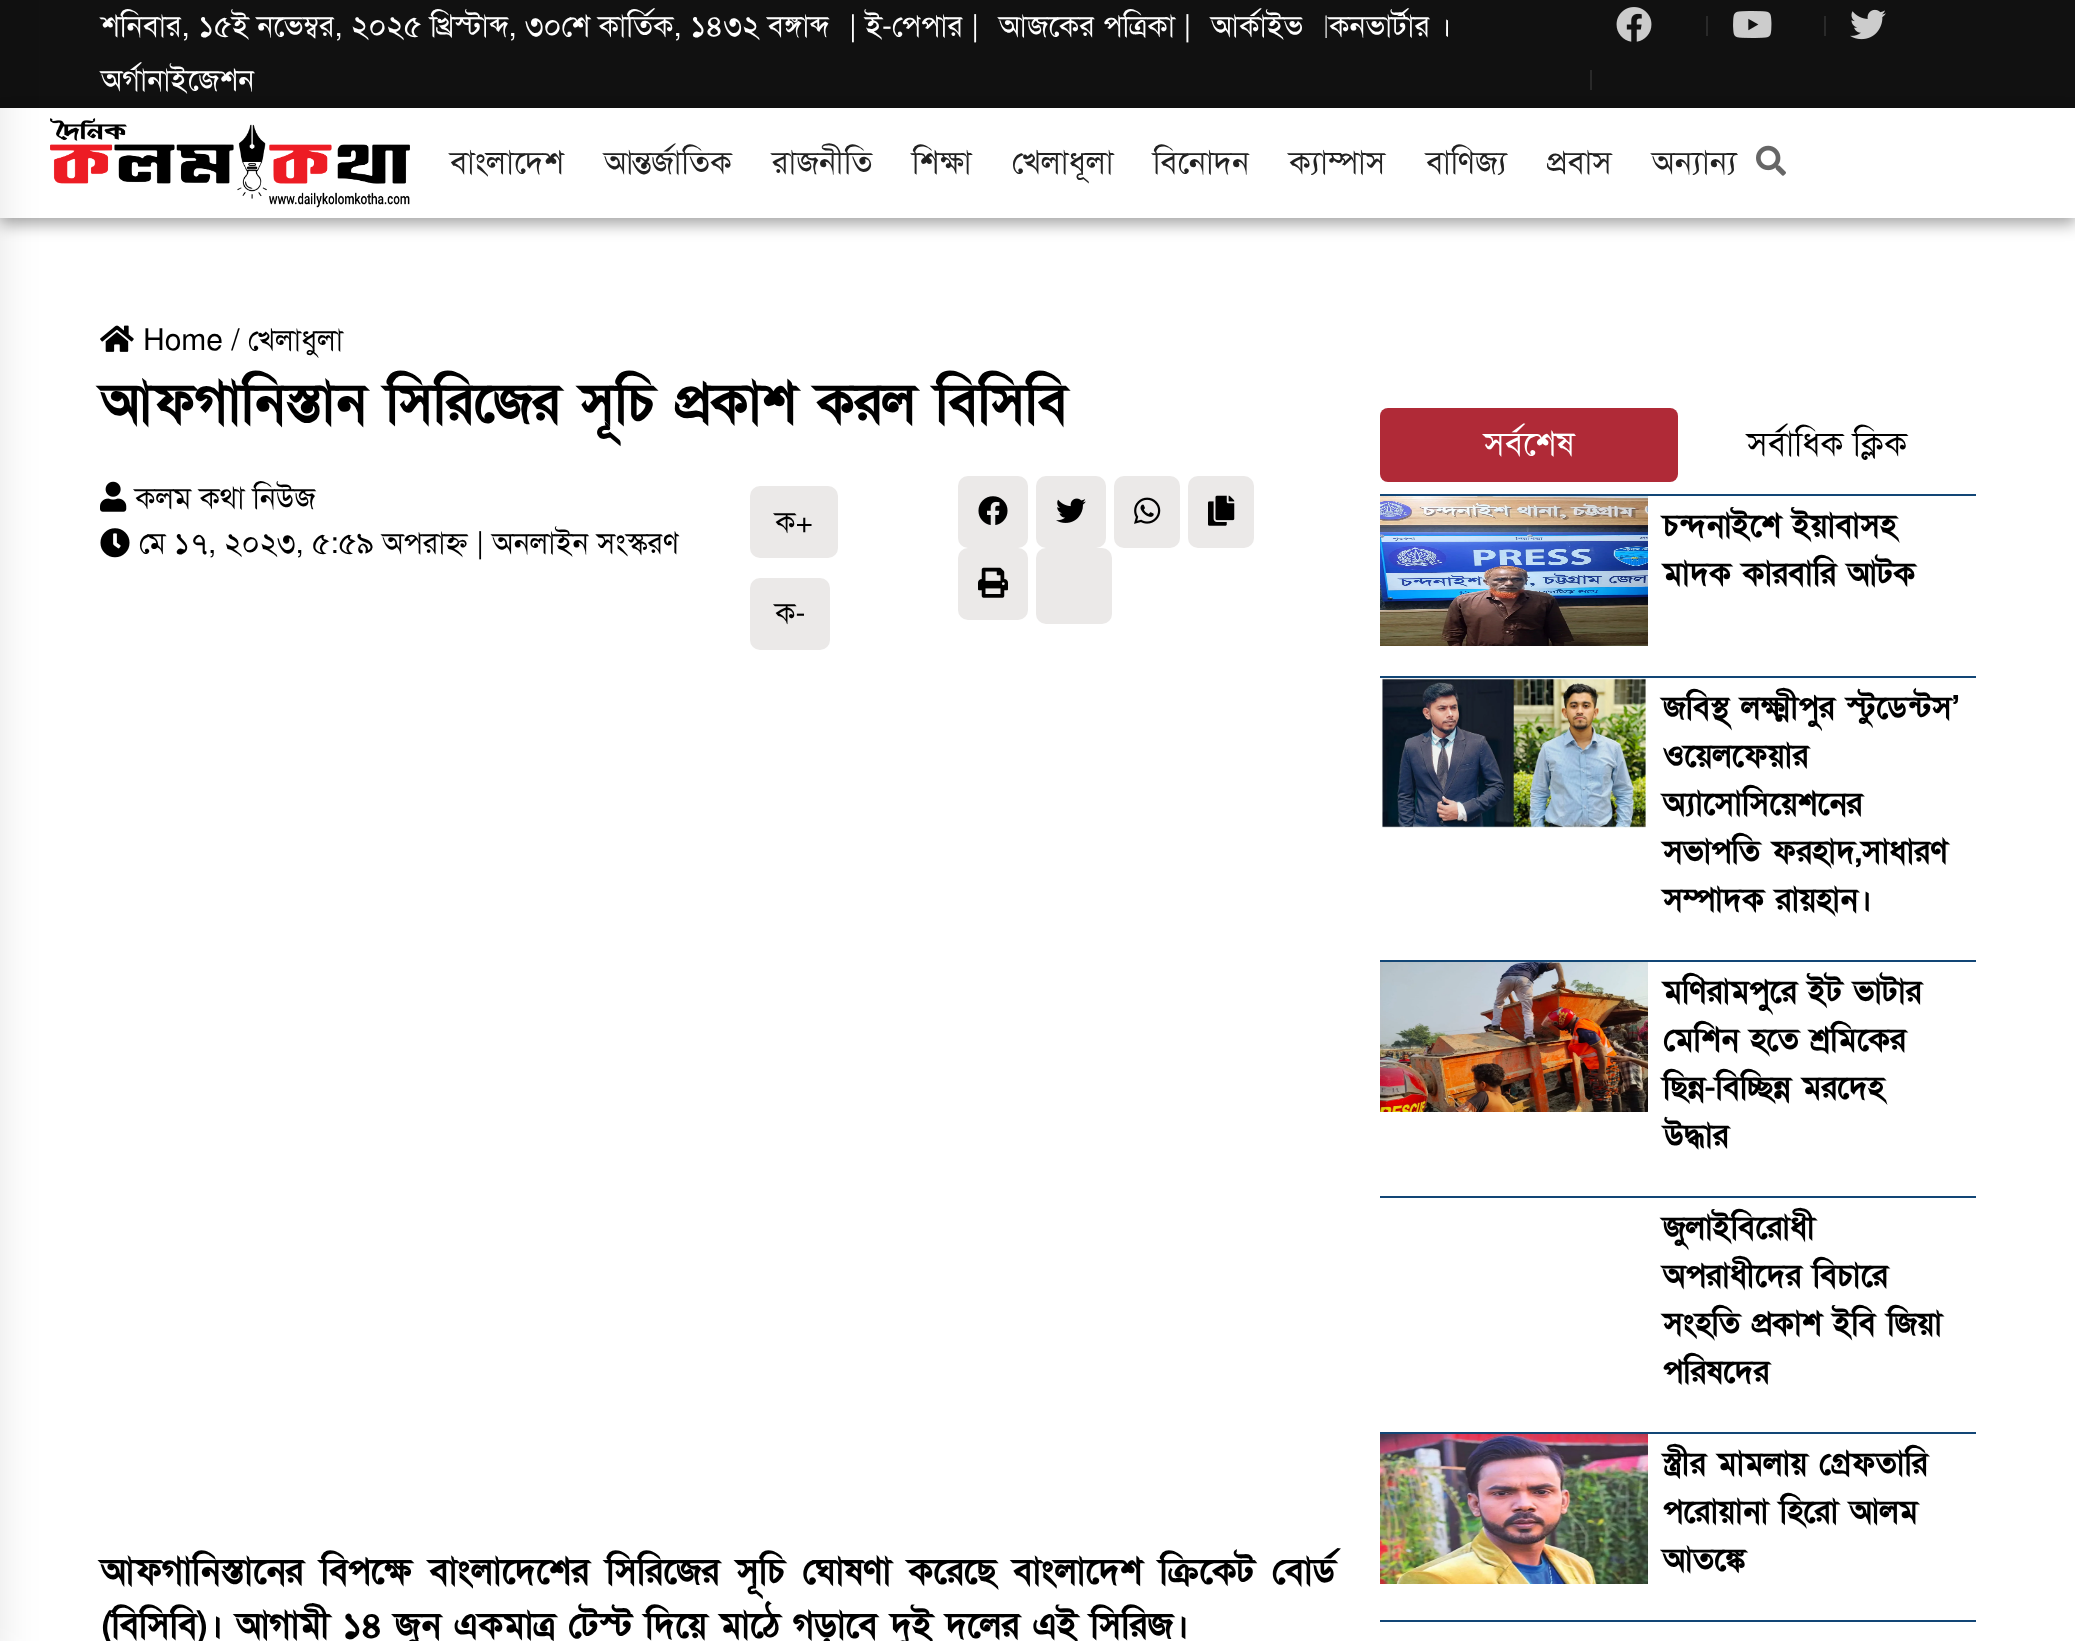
<!DOCTYPE html>
<meta charset="utf-8">
<style>body { margin: 0 } canvas { display: block }</style>
<canvas id="canvas" width="2075" height="1641"></canvas>
<img id="img1" src="img_04.png" hidden>
<img id="img2" src="img_01.png" hidden>
<img id="img3" src="img_02.png" hidden>
<img id="img4" src="img_03.png" hidden>
<img id="img5" src="img_05.png" hidden>
<img id="img6" src="img_06.png" hidden>
<img id="img7" src="img_07.png" hidden>
<img id="img8" src="img_08.png" hidden>
<img id="img9" src="img_09.png" hidden>
<img id="img10" src="img_10.png" hidden>
<img id="img11" src="img_11.png" hidden>
<img id="img12" src="img_12.png" hidden>
<img id="img13" src="img_13.png" hidden>
<img id="img14" src="img_14.png" hidden>
<img id="img15" src="img_15.png" hidden>
<img id="img16" src="img_16.png" hidden>
<img id="img17" src="img_17.png" hidden>
<script>
window.onload = function () {
	const canvas = document.getElementById("canvas");
	const ctx = canvas.getContext("2d");
	ctx.miterLimit = 4;
	ctx.fontKerning = "normal";
	function txt(s, x, y) {
		ctx.fillText(s, x, y);
	}
	function fill(x, y, w, h) {
		ctx.fillRect(x, y, w, h);
	}
	function round(x, y, w, h, r) {
		ctx.beginPath();
		ctx.roundRect(x, y, w, h, r);
		ctx.fill();
	}
	function img(id, x, y, w, h) {
		ctx.drawImage(document.getElementById(id), x, y, w, h);
	}

	ctx.fillStyle = "#FFFFFF";
	fill(0, 0, 2075, 1641);
	ctx.fillStyle = "#111111";
	fill(0, 0, 2075, 108);
	ctx.fillStyle = "#292929";
	fill(1590, 70, 2, 20);
	ctx.save();
	ctx.beginPath();
	ctx.moveTo(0, 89);
	ctx.lineTo(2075, 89);
	ctx.lineTo(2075, 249);
	ctx.lineTo(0, 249);
	ctx.closePath();
	ctx.moveTo(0, 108);
	ctx.lineTo(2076, 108);
	ctx.lineTo(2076, 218);
	ctx.lineTo(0, 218);
	ctx.closePath();
	ctx.clip("evenodd");
	ctx.fillStyle = "rgba(0, 0, 0, 0.36)";
	ctx.filter = "blur(8px)";
	ctx.beginPath();
	ctx.rect(0, 114, 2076, 110);
	ctx.fill();
	ctx.filter = "none";
	ctx.restore();
	img("img1", 50, 118, 360, 90);
	ctx.fillStyle = "rgba(0, 0, 0, 0.1)";
	ctx.filter = "blur(20px)";
	ctx.beginPath();
	ctx.rect(-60, -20, 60, 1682);
	ctx.fill();
	ctx.filter = "none";
	img("img2", 1616, 7, 36, 35);
	ctx.fillStyle = "#292929";
	fill(1706, 16, 2, 20);
	img("img3", 1733, 11, 39, 27);
	fill(1824, 16, 2, 20);
	img("img4", 1850, 9, 36, 31);
	img("img5", 1756, 145, 30, 31);
	img("img6", 100, 325, 34, 27);
	img("img7", 100, 481, 27, 31);
	img("img8", 100, 528, 30, 30);
	ctx.fillStyle = "#EBE9E8";
	round(750, 486, 88, 72, 10);
	round(750, 578, 80, 72, 10);
	round(958, 476, 70, 72, 10);
	img("img9", 978, 496, 30, 29);
	round(1036, 476, 70, 72, 10);
	img("img10", 1056, 498, 30, 25);
	round(1114, 476, 66, 72, 10);
	img("img11", 1134, 497, 27, 27);
	round(1188, 476, 66, 72, 10);
	img("img12", 1208, 495, 27, 31);
	round(958, 548, 70, 72, 10);
	img("img13", 978, 567, 30, 31);
	round(1036, 548, 76, 76, 10);
	ctx.fillStyle = "#B02A37";
	round(1380, 408, 298, 74, 8);
	ctx.fillStyle = "#124676";
	fill(1380, 494, 596, 2);
	img("img14", 1380, 496, 268, 150);
	fill(1380, 676, 596, 2);
	img("img15", 1381, 678, 267, 150);
	fill(1380, 960, 596, 2);
	img("img16", 1380, 962, 268, 150);
	fill(1380, 1196, 596, 2);
	fill(1380, 1432, 596, 2);
	img("img17", 1380, 1434, 268, 150);
	fill(1380, 1620, 596, 2);
	ctx.font = "30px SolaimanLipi";
	ctx.fillStyle = "#FFFFFF";
	txt("শনিবার, ১৫ই নভেম্বর, ২০২৫ খ্রিস্টাব্দ, ৩০শে কার্তিক, ১৪৩২ বঙ্গাব্দ", 101, 36);
	txt("| ই-পেপার |", 849, 36);
	txt("আজকের পত্রিকা |", 999, 36);
	txt("আর্কাইভ", 1211, 36);
	ctx.font = "24px SolaimanLipi";
	ctx.fillStyle = "#CCCCCC";
	txt("|", 1323, 33);
	ctx.font = "30px SolaimanLipi";
	ctx.fillStyle = "#FFFFFF";
	txt("কনভার্টার ।", 1329, 36);
	txt("অর্গানাইজেশন", 101, 90);
	ctx.font = "32px SolaimanLipi";
	ctx.fillStyle = "#222222";
	txt("বাংলাদেশ", 450, 173);
	txt("আন্তর্জাতিক", 604, 173);
	txt("রাজনীতি", 772, 173);
	txt("শিক্ষা", 912, 173);
	txt("খেলাধূলা", 1012, 173);
	txt("বিনোদন", 1153, 173);
	txt("ক্যাম্পাস", 1289, 173);
	txt("বাণিজ্য", 1426, 173);
	txt("প্রবাস", 1547, 173);
	txt("অন্যান্য", 1652, 173);
	ctx.font = "30px SolaimanLipi";
	ctx.fillStyle = "#000000";
	txt("Home / খেলাধুলা", 143, 350);
	ctx.font = "bold 55.5px SolaimanLipi";
	txt("আফগানিস্তান সিরিজের সূচি প্রকাশ করল বিসিবি", 101, 421);
	ctx.font = "30px SolaimanLipi";
	txt("কলম কথা নিউজ", 135, 508);
	txt("মে ১৭, ২০২৩, ৫:৫৯ অপরাহ্ণ | অনলাইন সংস্করণ", 139, 553);
	txt("ক+", 775, 532);
	txt("ক-", 775, 623);
	ctx.wordSpacing = "4.25px";
	ctx.font = "bold 36px SolaimanLipi";
	txt("আফগানিস্তানের বিপক্ষে বাংলাদেশের সিরিজের সূচি ঘোষণা করেছে বাংলাদেশ ক্রিকেট বোর্ড", 101, 1583);
	ctx.wordSpacing = "0px";
	txt("(বিসিবি)। আগামী ১৪ জুন একমাত্র টেস্ট দিয়ে মাঠে গড়াবে দুই দলের এই সিরিজ।", 101, 1637);
	ctx.font = "34px SolaimanLipi";
	ctx.fillStyle = "#FFFFFF";
	txt("সর্বশেষ", 1484, 455);
	ctx.fillStyle = "#000000";
	txt("সর্বাধিক ক্লিক", 1747, 455);
	ctx.font = "bold 32px SolaimanLipi";
	txt("চন্দনাইশে ইয়াবাসহ", 1663, 536);
	txt("মাদক কারবারি আটক", 1663, 584);
	txt("জবিস্থ লক্ষ্মীপুর স্টুডেন্টস’", 1663, 718);
	txt("ওয়েলফেয়ার", 1663, 766);
	txt("অ্যাসোসিয়েশনের", 1663, 814);
	txt("সভাপতি ফরহাদ,সাধারণ", 1663, 862);
	txt("সম্পাদক রায়হান।", 1663, 910);
	txt("মণিরামপুরে ইট ভাটার", 1663, 1002);
	txt("মেশিন হতে শ্রমিকের", 1663, 1050);
	txt("ছিন্ন-বিচ্ছিন্ন মরদেহ", 1663, 1098);
	txt("উদ্ধার", 1663, 1146);
	txt("জুলাইবিরোধী", 1663, 1238);
	txt("অপরাধীদের বিচারে", 1663, 1286);
	txt("সংহতি প্রকাশ ইবি জিয়া", 1663, 1334);
	txt("পরিষদের", 1663, 1382);
	txt("স্ত্রীর মামলায় গ্রেফতারি", 1663, 1474);
	txt("পরোয়ানা হিরো আলম", 1663, 1522);
	txt("আতঙ্কে", 1663, 1570);
};
</script>
